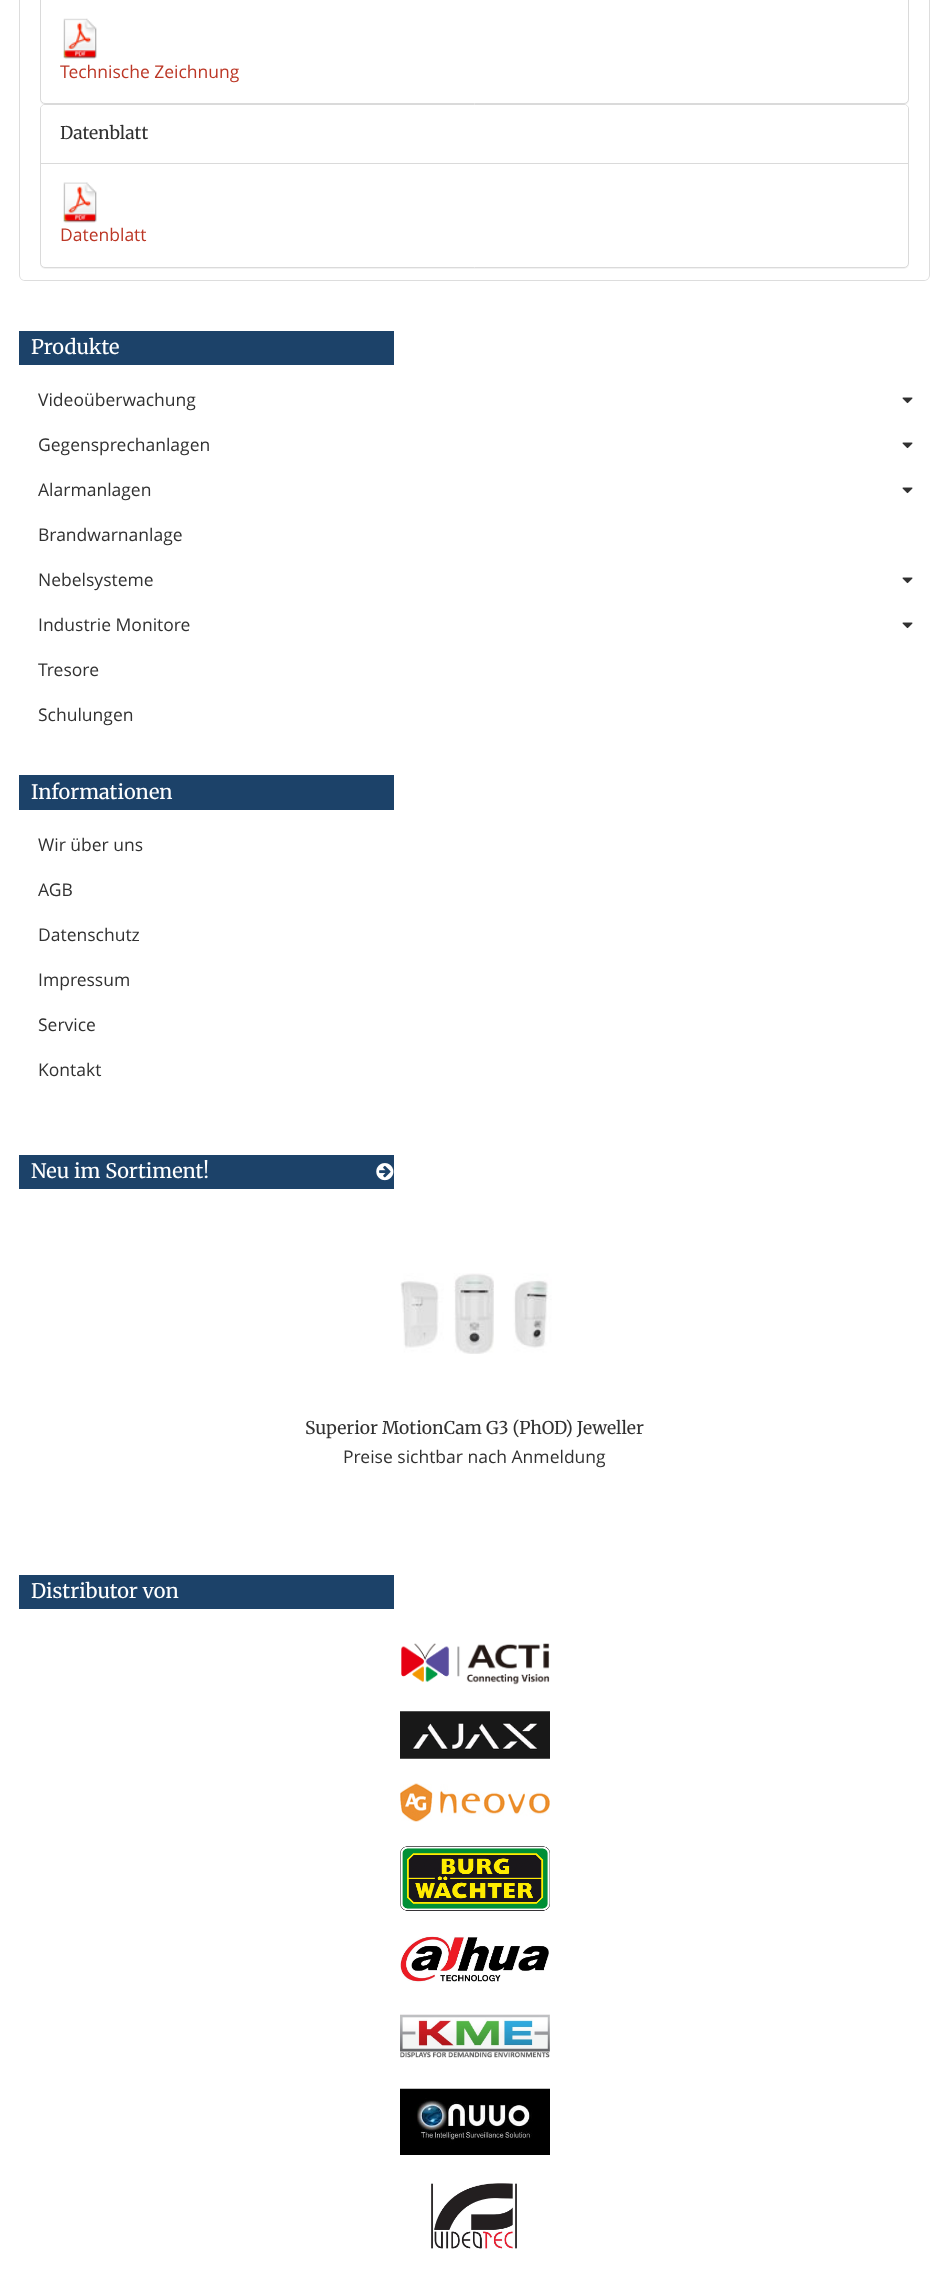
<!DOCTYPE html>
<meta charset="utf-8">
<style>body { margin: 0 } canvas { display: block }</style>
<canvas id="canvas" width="948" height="2286"></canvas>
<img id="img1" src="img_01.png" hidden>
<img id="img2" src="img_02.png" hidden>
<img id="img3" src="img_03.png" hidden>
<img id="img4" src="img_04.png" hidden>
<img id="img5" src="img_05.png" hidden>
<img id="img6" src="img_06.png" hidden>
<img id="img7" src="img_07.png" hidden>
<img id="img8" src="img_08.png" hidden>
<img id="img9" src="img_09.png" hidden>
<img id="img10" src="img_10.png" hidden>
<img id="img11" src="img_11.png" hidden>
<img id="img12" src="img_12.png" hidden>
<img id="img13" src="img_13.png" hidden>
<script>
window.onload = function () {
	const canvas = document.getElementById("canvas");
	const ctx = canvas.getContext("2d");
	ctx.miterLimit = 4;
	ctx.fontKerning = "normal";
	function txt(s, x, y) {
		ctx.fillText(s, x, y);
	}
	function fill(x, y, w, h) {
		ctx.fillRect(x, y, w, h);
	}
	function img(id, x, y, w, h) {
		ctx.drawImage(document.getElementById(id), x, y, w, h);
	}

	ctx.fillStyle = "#FFFFFF";
	fill(0, 0, 948, 2286);
	ctx.fillStyle = "#DDDDDD";
	ctx.beginPath();
	ctx.moveTo(19, -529);
	ctx.lineTo(930, -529);
	ctx.lineTo(930, 275);
	ctx.bezierCurveTo(930, 278, 927, 281, 924, 281);
	ctx.lineTo(25, 281);
	ctx.bezierCurveTo(22, 281, 19, 278, 19, 275);
	ctx.closePath();
	ctx.moveTo(20, -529);
	ctx.lineTo(929, -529);
	ctx.lineTo(929, 275);
	ctx.bezierCurveTo(929, 278, 927, 280, 924, 280);
	ctx.lineTo(25, 280);
	ctx.bezierCurveTo(22, 280, 20, 278, 20, 275);
	ctx.closePath();
	ctx.fill("evenodd");
	ctx.fillStyle = "rgba(0, 0, 0, 0.05)";
	ctx.filter = "blur(0.5px)";
	ctx.beginPath();
	ctx.roundRect(40, -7, 869, 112, 5);
	ctx.fill();
	ctx.filter = "none";
	ctx.fillStyle = "#FFFFFF";
	ctx.beginPath();
	ctx.roundRect(40.5, -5.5, 868, 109, 4.5);
	ctx.fill();
	ctx.strokeStyle = "#DADADA";
	ctx.stroke();
	img("img1", 63, 18, 34, 41);
	ctx.fillStyle = "rgba(0, 0, 0, 0.05)";
	ctx.filter = "blur(0.5px)";
	ctx.beginPath();
	ctx.roundRect(40, 105, 869, 164, 5);
	ctx.fill();
	ctx.filter = "none";
	ctx.fillStyle = "#FFFFFF";
	ctx.beginPath();
	ctx.roundRect(40.5, 104.5, 868, 163, 4.5);
	ctx.fill();
	ctx.stroke();
	ctx.beginPath();
	ctx.roundRect(41, 105, 867, 59, [4, 4, 0, 0]);
	ctx.fill();
	ctx.fillStyle = "#DADADA";
	fill(41, 163, 867, 1);
	img("img2", 63, 182, 34, 41);
	ctx.fillStyle = "#1C4269";
	fill(19, 331, 375, 34);
	img("img3", 902, 397, 11, 7);
	img("img3", 902, 442, 11, 7);
	img("img3", 902, 487, 11, 7);
	img("img3", 902, 577, 11, 7);
	img("img3", 902, 622, 11, 7);
	fill(19, 775, 375, 35);
	fill(19, 1155, 375, 34);
	img("img4", 376, 1163, 18, 18);
	img("img5", 400, 1273, 152, 81);
	fill(19, 1575, 375, 34);
	img("img6", 401, 1643, 149, 42);
	img("img7", 400, 1711, 150, 48);
	img("img8", 400, 1783, 150, 39);
	img("img9", 400, 1846, 150, 65);
	img("img10", 400, 1936, 149, 47);
	img("img11", 400, 2014, 150, 44);
	img("img12", 400, 2088, 150, 67);
	img("img13", 431, 2183, 86, 66);
	ctx.font = "17.5px Open Sans";
	ctx.fillStyle = "#BC3726";
	txt("Technische Zeichnung", 60, 78);
	ctx.font = "17.5px Merriweather";
	ctx.fillStyle = "#313131";
	txt("Datenblatt", 60, 139);
	ctx.font = "17.5px Open Sans";
	ctx.fillStyle = "#BC3726";
	txt("Datenblatt", 60, 241);
	ctx.font = "20px Merriweather";
	ctx.fillStyle = "#FFFFFF";
	txt("Produkte", 31, 354);
	ctx.font = "17.5px Open Sans";
	ctx.fillStyle = "#313131";
	txt("Videoüberwachung", 38, 406);
	txt("Gegensprechanlagen", 38, 451);
	txt("Alarmanlagen", 38, 496);
	txt("Brandwarnanlage", 38, 541);
	txt("Nebelsysteme", 38, 586);
	txt("Industrie Monitore", 38, 631);
	txt("Tresore", 38, 676);
	txt("Schulungen", 38, 721);
	ctx.font = "20px Merriweather";
	ctx.fillStyle = "#FFFFFF";
	txt("Informationen", 31, 799);
	ctx.font = "17.5px Open Sans";
	ctx.fillStyle = "#313131";
	txt("Wir über uns", 38, 851);
	txt("AGB", 38, 896);
	txt("Datenschutz", 38, 941);
	txt("Impressum", 38, 986);
	txt("Service", 38, 1031);
	txt("Kontakt", 38, 1076);
	ctx.font = "20px Merriweather";
	ctx.fillStyle = "#FFFFFF";
	txt("Neu im Sortiment!", 31, 1178);
	ctx.font = "17.5px Merriweather";
	ctx.fillStyle = "#313131";
	txt("Superior MotionCam G3 (PhOD) Jeweller", 305, 1434);
	ctx.font = "17.5px Open Sans";
	txt("Preise sichtbar nach Anmeldung", 343, 1463);
	ctx.font = "20px Merriweather";
	ctx.fillStyle = "#FFFFFF";
	txt("Distributor von", 31, 1598);
};
</script>
